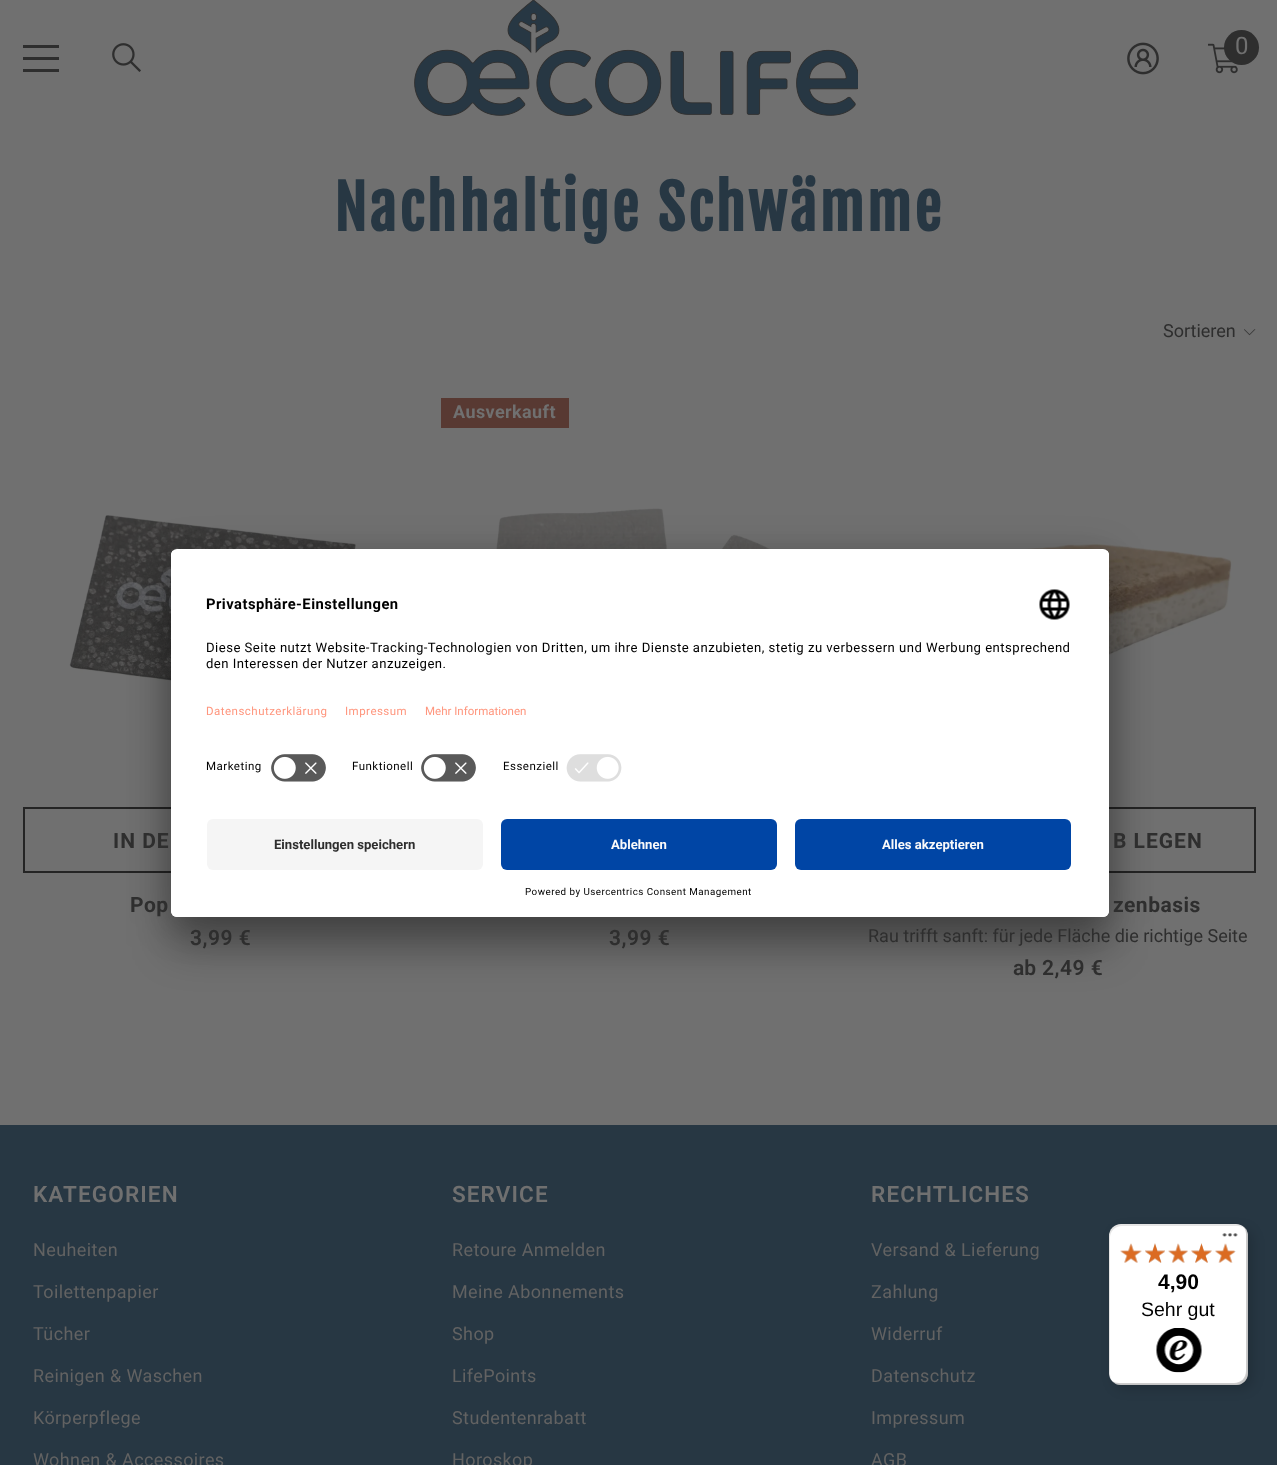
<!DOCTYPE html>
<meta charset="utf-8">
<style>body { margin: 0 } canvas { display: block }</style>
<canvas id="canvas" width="1277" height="1465"></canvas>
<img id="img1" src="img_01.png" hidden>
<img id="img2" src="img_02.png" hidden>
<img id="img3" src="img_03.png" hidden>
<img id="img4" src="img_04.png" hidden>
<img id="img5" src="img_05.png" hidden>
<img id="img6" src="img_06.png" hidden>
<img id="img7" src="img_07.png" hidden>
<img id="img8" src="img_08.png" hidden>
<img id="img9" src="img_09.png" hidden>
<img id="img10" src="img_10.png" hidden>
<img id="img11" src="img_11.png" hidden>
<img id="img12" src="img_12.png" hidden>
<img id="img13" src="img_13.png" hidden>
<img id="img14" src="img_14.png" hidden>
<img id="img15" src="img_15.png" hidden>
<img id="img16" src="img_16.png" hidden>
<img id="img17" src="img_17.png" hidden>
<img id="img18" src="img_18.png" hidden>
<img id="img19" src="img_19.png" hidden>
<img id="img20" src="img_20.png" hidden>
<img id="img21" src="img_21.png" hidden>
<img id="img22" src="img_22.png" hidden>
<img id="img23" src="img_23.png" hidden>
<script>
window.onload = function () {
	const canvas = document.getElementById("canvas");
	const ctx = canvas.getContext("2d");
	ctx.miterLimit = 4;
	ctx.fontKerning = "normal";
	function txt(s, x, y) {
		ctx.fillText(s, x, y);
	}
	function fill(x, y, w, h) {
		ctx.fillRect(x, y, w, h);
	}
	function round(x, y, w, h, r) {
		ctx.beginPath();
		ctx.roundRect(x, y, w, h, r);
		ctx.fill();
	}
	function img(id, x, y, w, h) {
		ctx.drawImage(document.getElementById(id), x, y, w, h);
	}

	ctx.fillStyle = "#707070";
	fill(0, 0, 1277, 1465);
	ctx.fillStyle = "#2E2E2E";
	fill(23, 57, 36, 3);
	fill(23, 45, 36, 3);
	fill(23, 69, 36, 3);
	img("img1", 112, 43, 29, 29);
	img("img2", 414, 0, 444, 116);
	img("img3", 1127, 42, 32, 33);
	img("img4", 1208, 43, 30, 31);
	ctx.beginPath();
	ctx.arc(1241.5, 47.5, 17.5, 0, Math.PI * 2);
	ctx.fill();
	img("img5", 1244, 329, 12, 7);
	img("img6", 23, 398, 394, 394);
	ctx.strokeStyle = "#242424";
	ctx.lineWidth = 2;
	ctx.strokeRect(24, 808, 392, 64);
	img("img7", 441, 398, 396, 151);
	ctx.fillStyle = "#583932";
	fill(441, 398, 128, 30);
	img("img8", 861, 398, 394, 394);
	ctx.strokeRect(862, 808, 393, 64);
	ctx.fillStyle = "#273743";
	fill(0, 1125, 1277, 340);
	ctx.fillStyle = "rgba(0, 0, 0, 0.3)";
	ctx.filter = "blur(21px)";
	ctx.beginPath();
	ctx.roundRect(171, 579, 938, 368, 6);
	ctx.fill();
	ctx.filter = "none";
	ctx.fillStyle = "rgba(0, 0, 0, 0.22)";
	ctx.filter = "blur(19.5px)";
	ctx.beginPath();
	ctx.roundRect(171, 557, 938, 367, 6);
	ctx.fill();
	ctx.filter = "none";
	ctx.fillStyle = "#FFFFFF";
	round(171, 549, 938, 368, 6);
	ctx.save();
	ctx.beginPath();
	ctx.roundRect(171, 549, 938, 368, 6);
	ctx.clip();
	ctx.beginPath();
	ctx.roundRect(171, 549, 938, 258, [6, 6, 0, 0]);
	ctx.clip();
	fill(171, 551, 938, 256);
	fill(171, 551, 938, 196);
	ctx.restore();
	img("img9", 1039, 589, 31, 31);
	img("img10", 271, 754, 55, 28);
	img("img10", 421, 754, 55, 28);
	img("img11", 566, 754, 56, 28);
	ctx.beginPath();
	ctx.roundRect(171, 807, 938, 110, [0, 0, 6, 6]);
	ctx.fill();
	ctx.fillStyle = "#F5F5F5";
	round(207, 819, 276, 51, 6);
	ctx.fillStyle = "#0045A5";
	round(501, 819, 276, 51, 6);
	round(795, 819, 276, 51, 6);
	ctx.fillStyle = "rgba(0, 0, 0, 0.15)";
	ctx.filter = "blur(6px)";
	ctx.beginPath();
	ctx.roundRect(1113, 1229, 140, 160, 12);
	ctx.fill();
	ctx.filter = "none";
	ctx.fillStyle = "#FFFFFF";
	round(1109, 1224, 139, 161, 12);
	ctx.fillStyle = "rgba(0, 0, 0, 0.1)";
	ctx.beginPath();
	ctx.moveTo(1122, 1226);
	ctx.lineTo(1238, 1226);
	ctx.bezierCurveTo(1241, 1226, 1243, 1227, 1246, 1229);
	ctx.bezierCurveTo(1243, 1226, 1240, 1224, 1236, 1224);
	ctx.lineTo(1121, 1224);
	ctx.bezierCurveTo(1114, 1224, 1109, 1229, 1109, 1236);
	ctx.lineTo(1109, 1373);
	ctx.bezierCurveTo(1109, 1376, 1110, 1379, 1112, 1381);
	ctx.bezierCurveTo(1111, 1379, 1110, 1377, 1110, 1374);
	ctx.lineTo(1110, 1238);
	ctx.bezierCurveTo(1110, 1231, 1115, 1226, 1122, 1226);
	ctx.closePath();
	ctx.fill();
	ctx.fillStyle = "rgba(0, 0, 0, 0.2)";
	ctx.beginPath();
	ctx.moveTo(1112, 1381);
	ctx.bezierCurveTo(1114, 1383, 1117, 1385, 1121, 1385);
	ctx.lineTo(1236, 1385);
	ctx.bezierCurveTo(1243, 1385, 1248, 1380, 1248, 1373);
	ctx.lineTo(1248, 1236);
	ctx.bezierCurveTo(1248, 1232, 1246, 1229, 1243, 1226);
	ctx.bezierCurveTo(1245, 1229, 1246, 1231, 1246, 1234);
	ctx.lineTo(1246, 1371);
	ctx.bezierCurveTo(1246, 1378, 1241, 1383, 1234, 1383);
	ctx.lineTo(1119, 1383);
	ctx.bezierCurveTo(1116, 1383, 1114, 1382, 1112, 1381);
	ctx.closePath();
	ctx.fill();
	ctx.fillStyle = "rgba(50, 50, 50, 0.2)";
	ctx.beginPath();
	ctx.moveTo(1112, 1381);
	ctx.bezierCurveTo(1114, 1383, 1117, 1385, 1121, 1385);
	ctx.lineTo(1236, 1385);
	ctx.bezierCurveTo(1243, 1385, 1248, 1380, 1248, 1373);
	ctx.lineTo(1248, 1236);
	ctx.bezierCurveTo(1248, 1233, 1247, 1230, 1245, 1228);
	ctx.bezierCurveTo(1246, 1230, 1247, 1232, 1247, 1235);
	ctx.lineTo(1247, 1372);
	ctx.bezierCurveTo(1247, 1378, 1242, 1384, 1235, 1384);
	ctx.lineTo(1120, 1384);
	ctx.bezierCurveTo(1117, 1384, 1114, 1383, 1112, 1381);
	ctx.closePath();
	ctx.fill();
	ctx.fillStyle = "rgba(255, 255, 255, 0.3)";
	ctx.beginPath();
	ctx.moveTo(1112, 1381);
	ctx.bezierCurveTo(1114, 1383, 1117, 1385, 1121, 1385);
	ctx.lineTo(1236, 1385);
	ctx.bezierCurveTo(1243, 1385, 1248, 1380, 1248, 1373);
	ctx.lineTo(1248, 1236);
	ctx.bezierCurveTo(1248, 1232, 1246, 1229, 1244, 1227);
	ctx.bezierCurveTo(1246, 1229, 1247, 1232, 1247, 1235);
	ctx.lineTo(1247, 1372);
	ctx.bezierCurveTo(1247, 1378, 1242, 1384, 1235, 1384);
	ctx.lineTo(1120, 1384);
	ctx.bezierCurveTo(1117, 1384, 1114, 1383, 1112, 1381);
	ctx.closePath();
	ctx.fill();
	img("img12", 1222, 1233, 16, 4);
	img("img13", 1120, 1244, 22, 19);
	img("img14", 1145, 1243, 20, 20);
	img("img15", 1168, 1244, 20, 19);
	img("img16", 1191, 1243, 21, 20);
	img("img17", 1215, 1244, 21, 19);
	img("img18", 1120, 1243, 22, 20);
	img("img19", 1145, 1243, 20, 20);
	img("img20", 1168, 1243, 20, 20);
	img("img21", 1191, 1243, 21, 20);
	img("img22", 1215, 1243, 20, 20);
	img("img23", 1156, 1328, 46, 45);
	ctx.font = "24px Roboto";
	ctx.fillStyle = "#707070";
	txt("0", 1235, 54);
	ctx.letterSpacing = "3px";
	ctx.font = "bold 60px Fjalla One";
	ctx.fillStyle = "#273743";
	txt("Nachhaltige Schwämme", 334, 231);
	ctx.letterSpacing = "0px";
	ctx.font = "18px Roboto";
	ctx.fillStyle = "#2E2E2E";
	txt("Sortieren", 1163, 337);
	ctx.letterSpacing = "1px";
	ctx.font = "bold 21px Roboto";
	txt("IN DE", 113, 848);
	ctx.letterSpacing = "0.5px";
	txt("Pop", 130, 912);
	ctx.font = "600 21px Roboto";
	txt("3,99 €", 190, 945);
	ctx.letterSpacing = "0.4px";
	ctx.font = "bold 18px Roboto";
	ctx.fillStyle = "#707070";
	txt("Ausverkauft", 453, 418);
	ctx.letterSpacing = "0.5px";
	ctx.font = "600 21px Roboto";
	ctx.fillStyle = "#2E2E2E";
	txt("3,99 €", 609, 945);
	ctx.letterSpacing = "1px";
	ctx.font = "bold 21px Roboto";
	txt("B LEGEN", 1113, 848);
	ctx.letterSpacing = "0.5px";
	txt("zenbasis", 1113, 912);
	ctx.letterSpacing = "0px";
	ctx.font = "18px Roboto";
	txt("Rau trifft sanft: für jede Fläche die richtige Seite", 868, 942);
	ctx.font = "600 21px Roboto";
	txt("ab", 1013, 975);
	ctx.letterSpacing = "0.5px";
	txt("2,49 €", 1042, 975);
	ctx.letterSpacing = "1.1px";
	ctx.font = "600 22.5px Roboto";
	ctx.fillStyle = "#707070";
	txt("KATEGORIEN", 33, 1202);
	ctx.letterSpacing = "0.4px";
	ctx.font = "18px Roboto";
	ctx.fillStyle = "#626262";
	txt("Neuheiten", 33, 1256);
	txt("Toilettenpapier", 33, 1298);
	txt("Tücher", 33, 1340);
	txt("Reinigen & Waschen", 33, 1382);
	txt("Körperpflege", 33, 1424);
	txt("Wohnen & Accessoires", 33, 1466);
	ctx.letterSpacing = "1.1px";
	ctx.font = "600 22.5px Roboto";
	ctx.fillStyle = "#707070";
	txt("SERVICE", 452, 1202);
	ctx.letterSpacing = "0.4px";
	ctx.font = "18px Roboto";
	ctx.fillStyle = "#626262";
	txt("Retoure Anmelden", 452, 1256);
	txt("Meine Abonnements", 452, 1298);
	txt("Shop", 452, 1340);
	txt("LifePoints", 452, 1382);
	txt("Studentenrabatt", 452, 1424);
	txt("Horoskop", 452, 1466);
	ctx.letterSpacing = "1.1px";
	ctx.font = "600 22.5px Roboto";
	ctx.fillStyle = "#707070";
	txt("RECHTLICHES", 871, 1202);
	ctx.letterSpacing = "0.4px";
	ctx.font = "18px Roboto";
	ctx.fillStyle = "#626262";
	txt("Versand & Lieferung", 871, 1256);
	txt("Zahlung", 871, 1298);
	txt("Widerruf", 871, 1340);
	txt("Datenschutz", 871, 1382);
	txt("Impressum", 871, 1424);
	txt("AGB", 871, 1466);
	ctx.letterSpacing = "0.48px";
	ctx.font = "bold 14.75px Roboto";
	ctx.fillStyle = "#000000";
	txt("Privatsphäre-Einstellungen", 206, 609);
	ctx.font = "13.12px Roboto";
	txt("Diese Seite nutzt Website-Tracking-Technologien von Dritten, um ihre Dienste anzubieten, stetig zu verbessern und Werbung entsprechend", 206, 652);
	txt("den Interessen der Nutzer anzuzeigen.", 206, 668);
	ctx.font = "11.5px Roboto";
	ctx.fillStyle = "#FF967E";
	txt("Datenschutzerklärung", 206, 715);
	txt("Impressum", 345, 715);
	ctx.letterSpacing = "0px";
	txt("Mehr Informationen", 425, 715);
	ctx.letterSpacing = "0.48px";
	ctx.fillStyle = "#000000";
	txt("Marketing", 206, 770);
	txt("Funktionell", 352, 770);
	txt("Essenziell", 503, 770);
	ctx.letterSpacing = "0px";
	ctx.font = "bold 13.12px Roboto";
	ctx.fillStyle = "#2E2E2E";
	txt("Einstellungen speichern", 274, 849);
	ctx.fillStyle = "#FAFAFA";
	txt("Ablehnen", 611, 849);
	txt("Alles akzeptieren", 882, 849);
	ctx.letterSpacing = "0.48px";
	ctx.font = "9.8px Roboto";
	ctx.fillStyle = "#000000";
	txt("Powered by Usercentrics Consent Management", 525, 895);
	ctx.letterSpacing = "0px";
	ctx.font = "bold 21px Liberation Sans";
	txt("4,90", 1158, 1289);
	ctx.font = "19.5px Liberation Sans";
	txt("Sehr gut", 1141, 1316);
};
</script>
